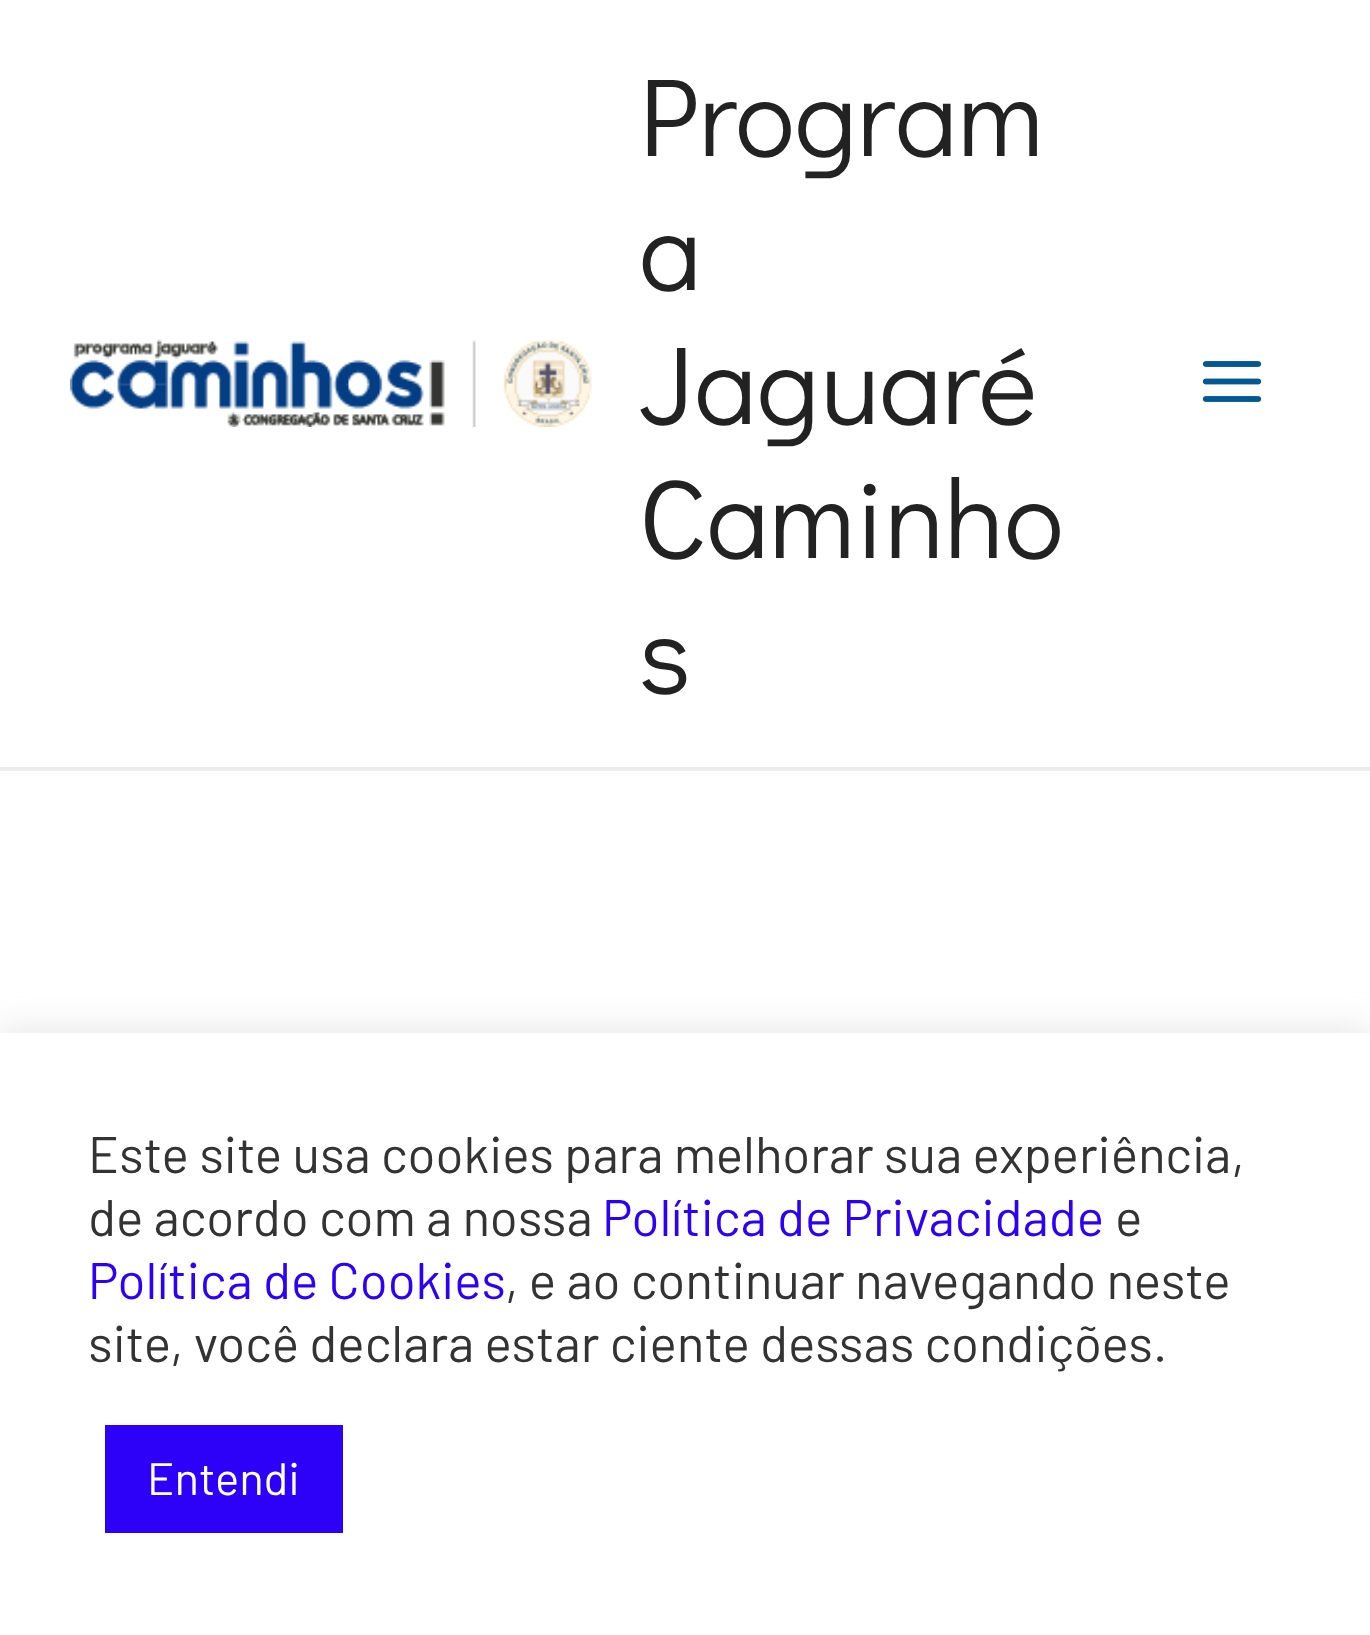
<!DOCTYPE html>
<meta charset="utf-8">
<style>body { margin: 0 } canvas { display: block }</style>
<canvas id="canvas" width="1370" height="1635"></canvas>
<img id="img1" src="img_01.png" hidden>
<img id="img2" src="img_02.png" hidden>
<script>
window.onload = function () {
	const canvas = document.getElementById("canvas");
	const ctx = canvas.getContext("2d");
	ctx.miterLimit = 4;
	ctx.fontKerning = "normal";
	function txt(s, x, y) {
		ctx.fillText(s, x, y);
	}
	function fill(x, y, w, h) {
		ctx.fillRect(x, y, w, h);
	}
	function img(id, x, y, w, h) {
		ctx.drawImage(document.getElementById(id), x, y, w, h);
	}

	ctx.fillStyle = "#FFFFFF";
	fill(0, 0, 1370, 1635);
	ctx.fillStyle = "#EDEDED";
	fill(0, 767, 1370, 4);
	img("img1", 70, 339, 522, 88);
	img("img2", 1202, 361, 60, 41);
	ctx.fillStyle = "rgba(172, 171, 171, 0.3)";
	ctx.filter = "blur(17.5px)";
	ctx.beginPath();
	ctx.rect(0, 1029, 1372, 606);
	ctx.fill();
	ctx.filter = "none";
	ctx.fillStyle = "#FFFFFF";
	fill(0, 1033, 1370, 602);
	ctx.fillStyle = "#2D00F7";
	fill(105, 1425, 238, 108);
	ctx.font = "111.5px Didact Gothic";
	ctx.fillStyle = "#222222";
	txt("Program", 639, 156);
	txt("a", 639, 290);
	txt("Jaguaré", 639, 424);
	txt("Caminho", 639, 558);
	txt("s", 639, 693);
	ctx.font = "51.3px Barlow";
	ctx.fillStyle = "#333333";
	txt("Este site usa cookies para melhorar sua experiência,", 88, 1173);
	txt("de acordo com a nossa", 88, 1236);
	ctx.fillStyle = "#2D00F7";
	txt("Política de Privacidade", 602, 1236);
	ctx.fillStyle = "#333333";
	txt("e", 1115, 1236);
	ctx.fillStyle = "#2D00F7";
	txt("Política de Cookies", 88, 1299);
	ctx.fillStyle = "#333333";
	txt(", e ao continuar navegando neste", 505, 1299);
	txt("site, você declara estar ciente dessas condições.", 88, 1362);
	ctx.font = "45.5px Barlow";
	ctx.fillStyle = "#FFFFFF";
	txt("Entendi", 147, 1495);
};
</script>
